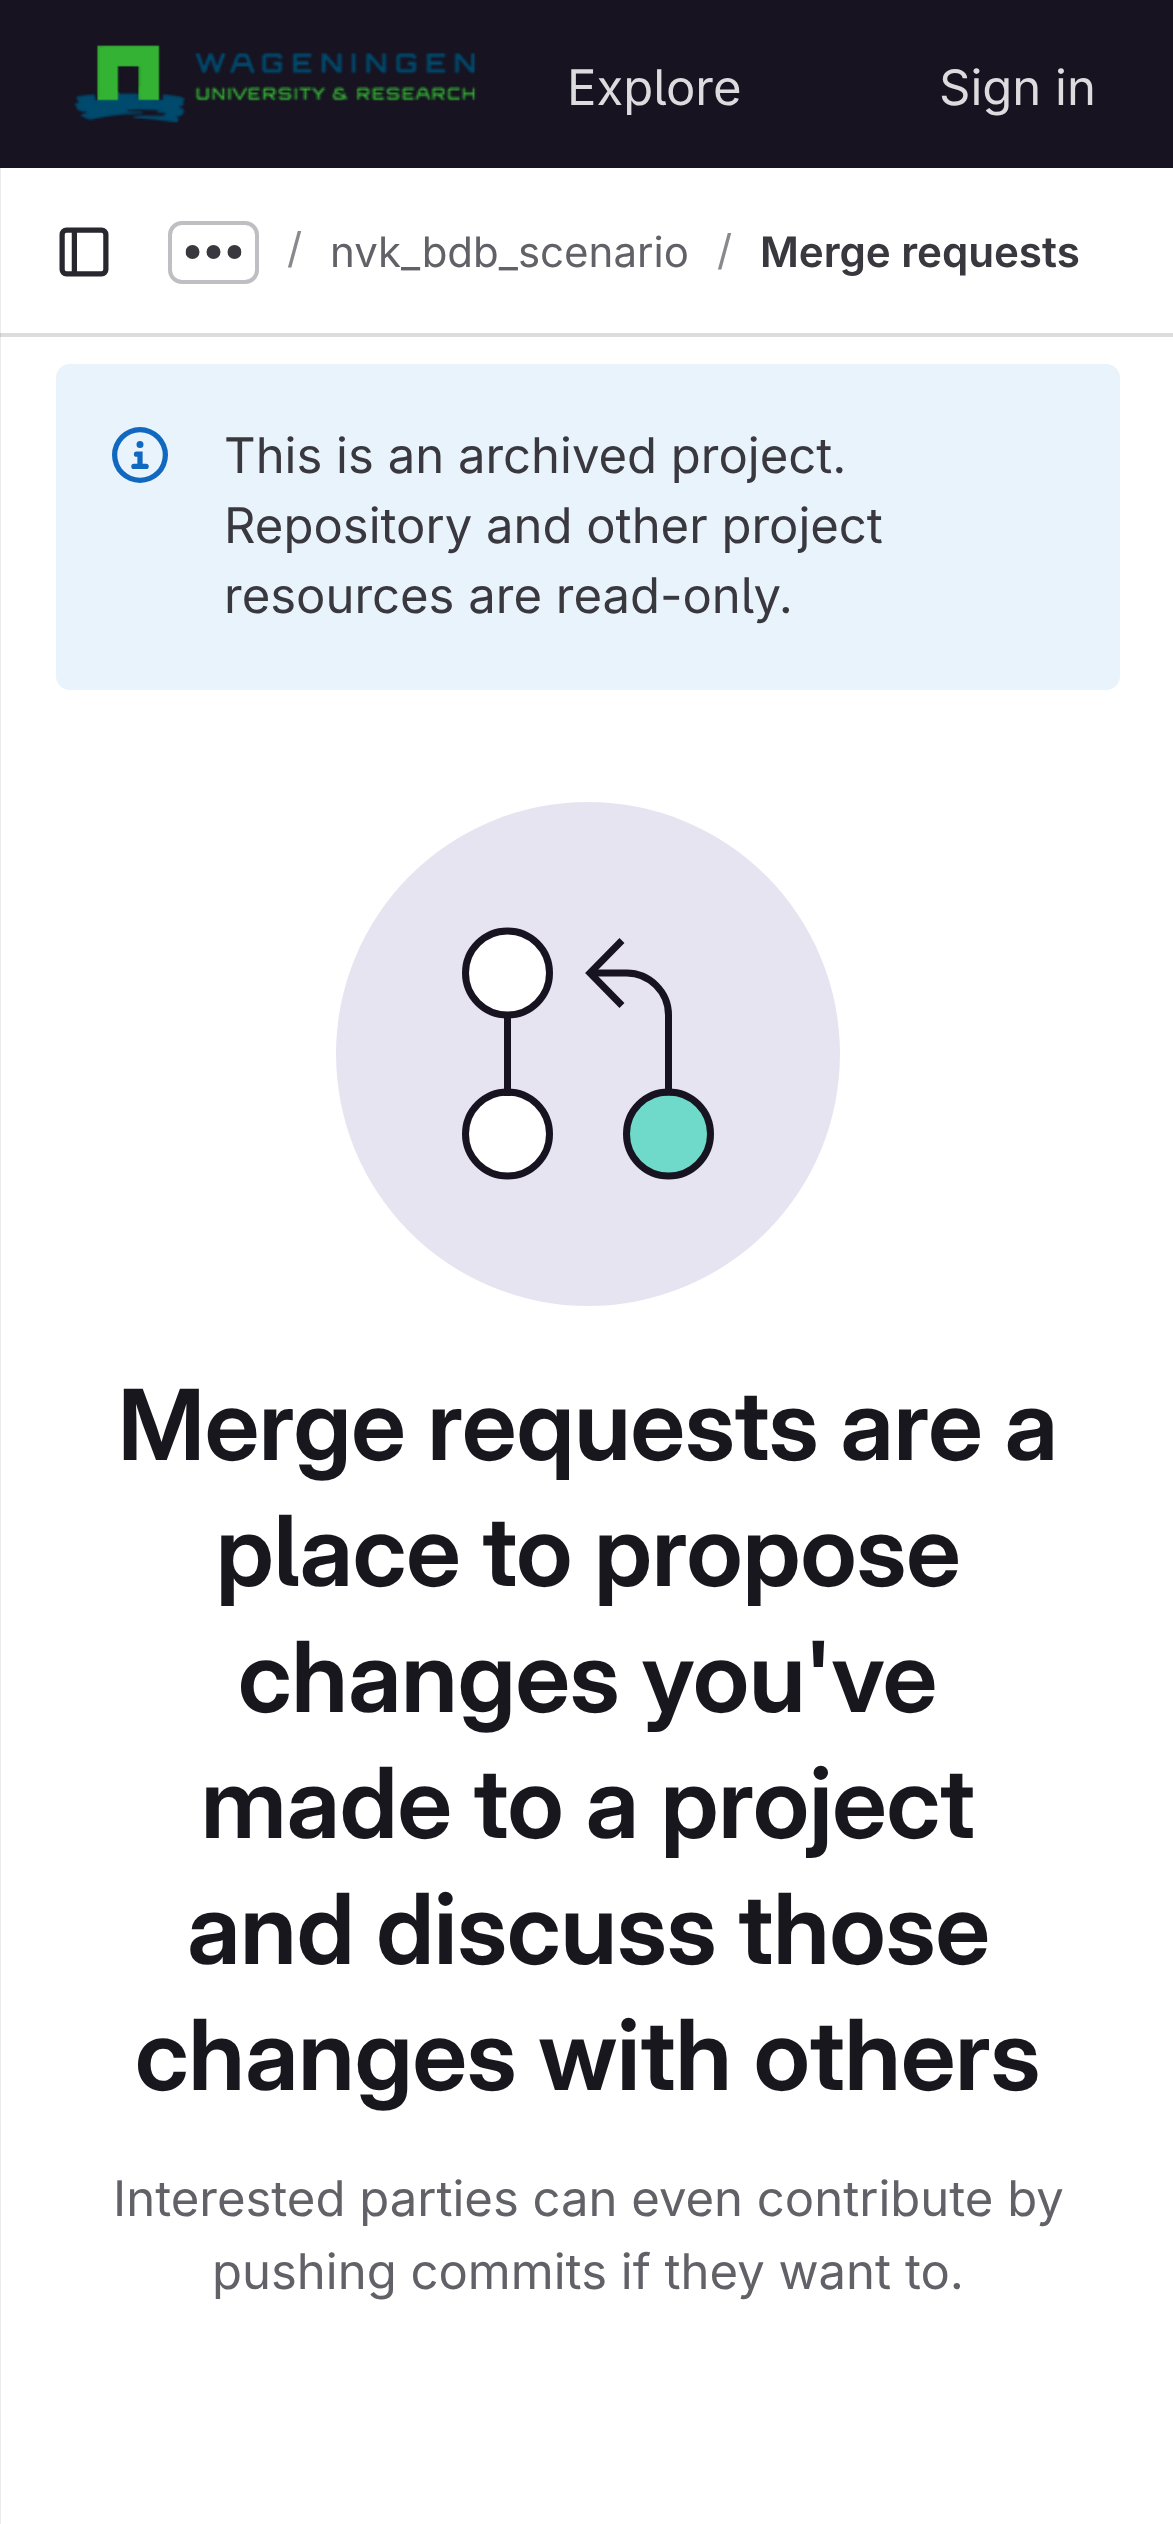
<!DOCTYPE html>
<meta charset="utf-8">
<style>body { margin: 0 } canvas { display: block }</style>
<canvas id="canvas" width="1173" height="2524"></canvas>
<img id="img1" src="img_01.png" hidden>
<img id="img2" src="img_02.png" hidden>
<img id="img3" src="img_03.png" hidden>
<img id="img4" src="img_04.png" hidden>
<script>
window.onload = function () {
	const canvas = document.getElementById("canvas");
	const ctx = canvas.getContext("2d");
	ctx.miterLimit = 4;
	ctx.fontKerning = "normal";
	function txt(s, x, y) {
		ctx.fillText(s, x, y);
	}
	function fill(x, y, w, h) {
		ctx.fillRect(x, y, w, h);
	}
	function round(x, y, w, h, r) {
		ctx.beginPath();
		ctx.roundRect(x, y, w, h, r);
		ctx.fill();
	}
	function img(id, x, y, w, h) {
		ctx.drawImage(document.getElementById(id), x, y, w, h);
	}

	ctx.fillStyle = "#FFFFFF";
	fill(0, 0, 1173, 2524);
	ctx.fillStyle = "#EBEBEB";
	fill(0, 168, 1, 2356);
	ctx.fillStyle = "#171321";
	fill(0, 0, 1173, 168);
	img("img1", 74, 45, 403, 78);
	ctx.fillStyle = "#DCDCDE";
	fill(0, 333, 1173, 4);
	ctx.fillStyle = "#CBCBCD";
	fill(0, 333, 1, 4);
	img("img2", 59, 227, 50, 50);
	ctx.beginPath();
	ctx.roundRect(170, 223, 87, 59, 12);
	ctx.strokeStyle = "#BFBFC3";
	ctx.lineWidth = 4;
	ctx.stroke();
	img("img3", 185, 245, 57, 14);
	ctx.fillStyle = "#E9F3FC";
	round(56, 364, 1064, 326, 14);
	img("img4", 112, 427, 56, 56);
	ctx.fillStyle = "#E7E4F2";
	ctx.beginPath();
	ctx.arc(588, 1054, 252, 0, Math.PI * 2);
	ctx.fill();
	ctx.fillStyle = "#FFFFFF";
	ctx.beginPath();
	ctx.arc(507.5, 1134, 42, 0, Math.PI * 2);
	ctx.fill();
	ctx.strokeStyle = "#171321";
	ctx.lineWidth = 7;
	ctx.stroke();
	ctx.fillStyle = "#171321";
	fill(504, 1012, 7, 84);
	ctx.fillStyle = "#FFFFFF";
	ctx.beginPath();
	ctx.arc(507.5, 973, 42, 0, Math.PI * 2);
	ctx.fill();
	ctx.stroke();
	ctx.fillStyle = "#6FDAC9";
	ctx.beginPath();
	ctx.arc(668.5, 1134, 42, 0, Math.PI * 2);
	ctx.fill();
	ctx.stroke();
	ctx.beginPath();
	ctx.moveTo(668.5, 1092);
	ctx.lineTo(668.5, 1015);
	ctx.bezierCurveTo(668.5, 992, 649.5, 973, 626.5, 973);
	ctx.lineTo(595, 973);
	ctx.lineCap = "square";
	ctx.stroke();
	ctx.beginPath();
	ctx.moveTo(619.5, 943);
	ctx.lineTo(590, 973);
	ctx.lineTo(619.5, 1003);
	ctx.stroke();
	ctx.font = "49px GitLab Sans";
	ctx.fillStyle = "#DCDCDE";
	txt("Explore", 567, 105);
	txt("Sign in", 939, 105);
	ctx.font = "42px GitLab Sans";
	ctx.fillStyle = "#89888D";
	txt("/", 287, 263);
	ctx.fillStyle = "#626168";
	txt("nvk_bdb_scenario", 330, 267);
	ctx.fillStyle = "#89888D";
	txt("/", 717, 265);
	ctx.font = "600 42px 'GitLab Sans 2'";
	ctx.fillStyle = "#3A383F";
	txt("Merge requests", 760, 267);
	ctx.font = "49px GitLab Sans";
	txt("This is an archived project.", 224, 473);
	txt("Repository and other project", 224, 543);
	txt("resources are read-only.", 224, 613);
	ctx.font = "600 98px GitLab Sans";
	ctx.fillStyle = "#18171D";
	txt("Merge requests are a", 118, 1460);
	txt("place to propose", 216, 1586);
	txt("changes you've", 238, 1712);
	txt("made to a project", 201, 1838);
	txt("and discuss those", 187, 1964);
	txt("changes with others", 135, 2090);
	ctx.font = "49px GitLab Sans";
	ctx.fillStyle = "#626168";
	txt("Interested parties can even contribute by", 113, 2216);
	txt("pushing commits if they want to.", 212, 2289);
};
</script>
